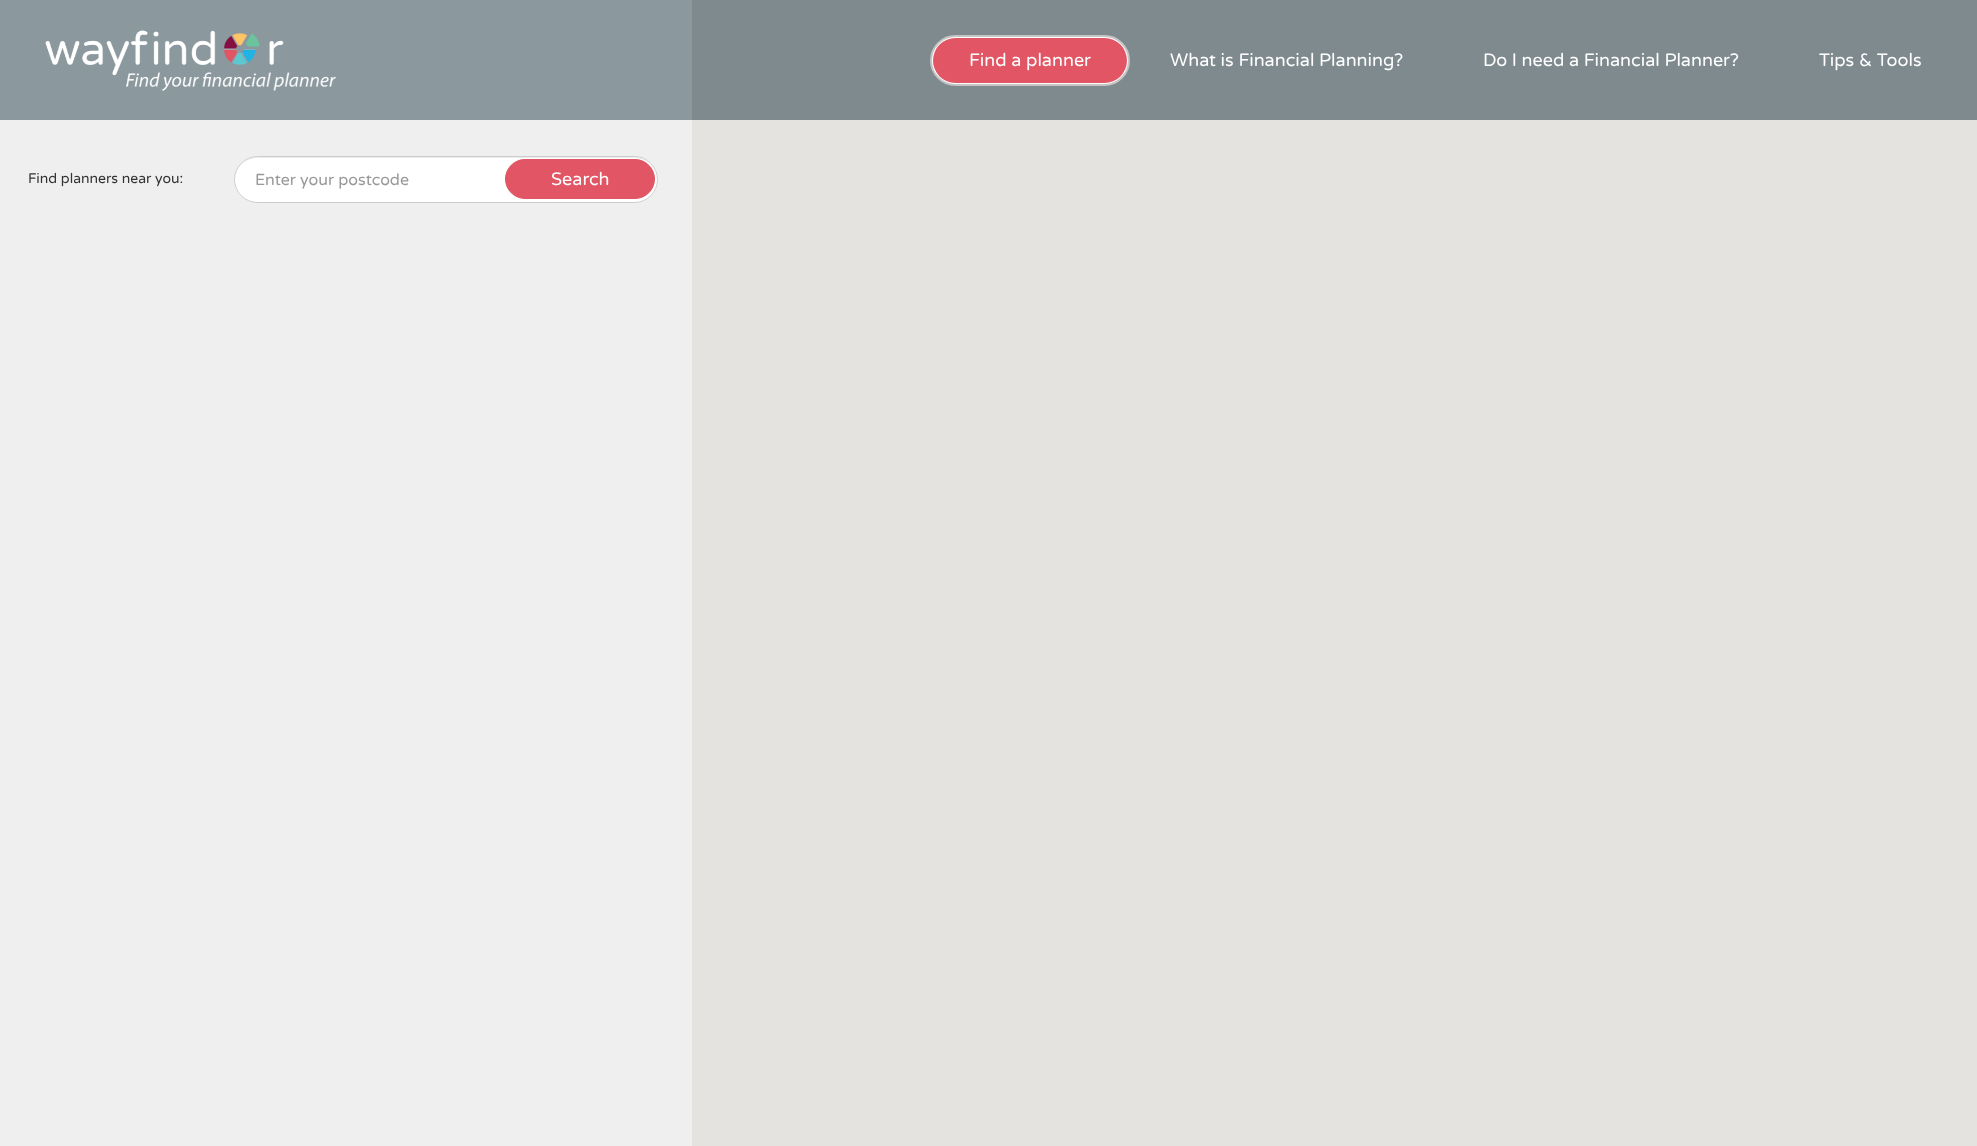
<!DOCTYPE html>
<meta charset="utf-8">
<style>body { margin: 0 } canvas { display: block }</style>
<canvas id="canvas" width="1977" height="1146"></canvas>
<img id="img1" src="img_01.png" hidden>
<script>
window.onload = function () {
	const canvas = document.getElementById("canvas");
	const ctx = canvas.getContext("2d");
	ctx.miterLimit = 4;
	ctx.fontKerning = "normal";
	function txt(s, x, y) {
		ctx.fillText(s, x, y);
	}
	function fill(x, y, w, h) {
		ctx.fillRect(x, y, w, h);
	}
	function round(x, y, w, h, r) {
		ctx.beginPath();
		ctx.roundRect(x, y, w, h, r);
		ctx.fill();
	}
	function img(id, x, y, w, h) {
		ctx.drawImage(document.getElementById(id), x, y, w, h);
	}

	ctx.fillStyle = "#8B989E";
	fill(0, 0, 1977, 1146);
	img("img1", 45, 30, 291, 61);
	ctx.fillStyle = "#7E8A8E";
	fill(692, 0, 1285, 120);
	ctx.fillStyle = "#FFFFFF";
	ctx.beginPath();
	ctx.roundRect(931, 36, 198, 49, 24.5);
	ctx.fill();
	ctx.strokeStyle = "#C5C5C5";
	ctx.lineWidth = 2;
	ctx.stroke();
	ctx.fillStyle = "#E15564";
	round(933, 38, 194, 45, 22.5);
	ctx.fillStyle = "#EFEFEF";
	fill(0, 120, 692, 1026);
	ctx.fillStyle = "#FFFFFF";
	round(234, 156, 424, 47, 23.5);
	ctx.fillStyle = "#ECECEC";
	ctx.beginPath();
	ctx.moveTo(258, 158);
	ctx.lineTo(634, 158);
	ctx.bezierCurveTo(647, 158, 657, 168, 657, 180);
	ctx.bezierCurveTo(657, 167, 647, 157, 634, 157);
	ctx.lineTo(258, 157);
	ctx.bezierCurveTo(245, 157, 235, 167, 235, 180);
	ctx.bezierCurveTo(235, 168, 245, 158, 258, 158);
	ctx.closePath();
	ctx.fill();
	ctx.beginPath();
	ctx.roundRect(234.5, 156.5, 423, 46, 23);
	ctx.strokeStyle = "#CCCCCC";
	ctx.lineWidth = 1;
	ctx.stroke();
	ctx.fillStyle = "#E15564";
	ctx.beginPath();
	ctx.roundRect(505.5, 159.5, 149, 39, 19.5);
	ctx.fill();
	ctx.strokeStyle = "#E15564";
	ctx.stroke();
	ctx.fillStyle = "#E5E3DF";
	fill(692, 120, 1285, 1026);
	ctx.font = "18px Varela Round";
	ctx.fillStyle = "#FFFFFF";
	txt("Find a planner", 969, 66);
	txt("What is Financial Planning?", 1170, 66);
	txt("Do I need a Financial Planner?", 1483, 66);
	txt("Tips & Tools", 1819, 66);
	ctx.font = "14px Varela Round";
	ctx.fillStyle = "#333333";
	txt("Find planners near you:", 28, 183);
	ctx.font = "16px Varela Round";
	ctx.fillStyle = "#999999";
	txt("Enter your postcode", 255, 185);
	ctx.font = "18px Varela Round";
	ctx.fillStyle = "#FFFFFF";
	txt("Search", 551, 185);
};
</script>
